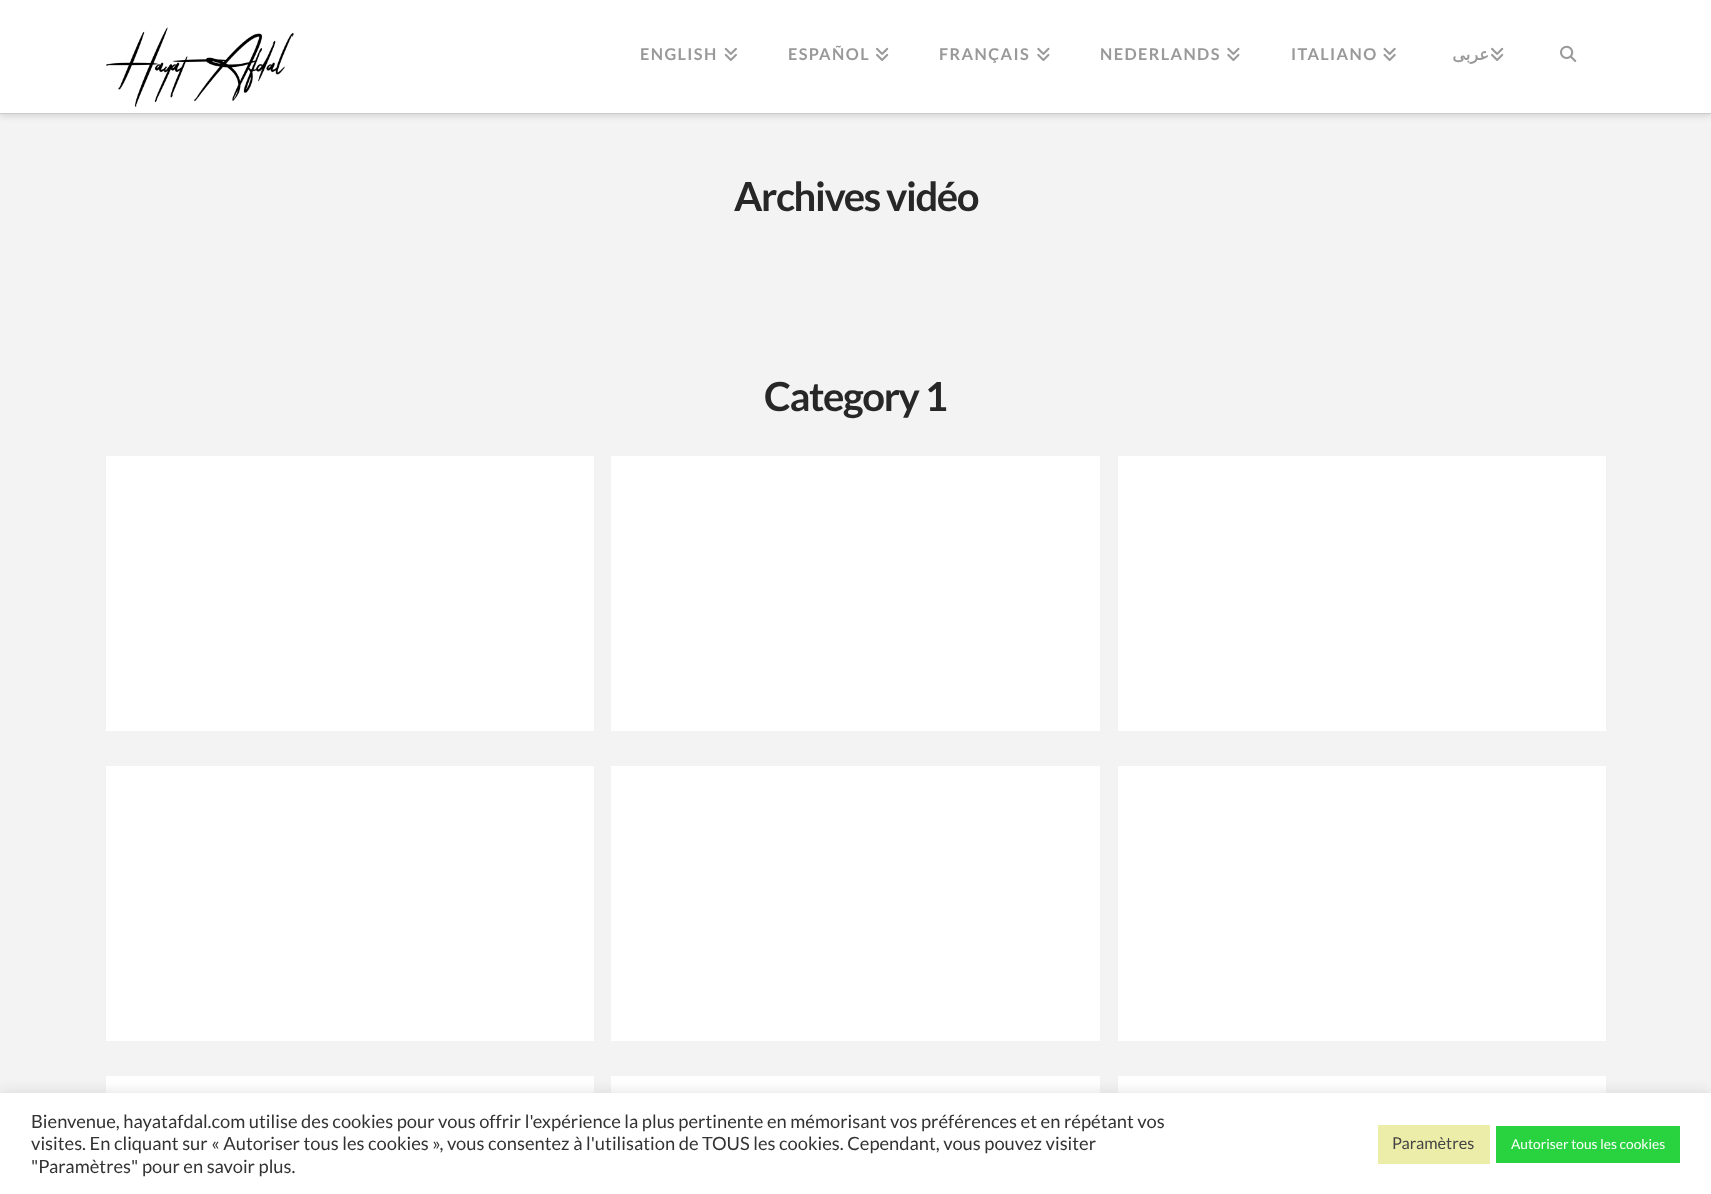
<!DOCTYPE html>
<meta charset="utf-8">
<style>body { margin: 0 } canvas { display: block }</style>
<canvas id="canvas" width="1711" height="1194"></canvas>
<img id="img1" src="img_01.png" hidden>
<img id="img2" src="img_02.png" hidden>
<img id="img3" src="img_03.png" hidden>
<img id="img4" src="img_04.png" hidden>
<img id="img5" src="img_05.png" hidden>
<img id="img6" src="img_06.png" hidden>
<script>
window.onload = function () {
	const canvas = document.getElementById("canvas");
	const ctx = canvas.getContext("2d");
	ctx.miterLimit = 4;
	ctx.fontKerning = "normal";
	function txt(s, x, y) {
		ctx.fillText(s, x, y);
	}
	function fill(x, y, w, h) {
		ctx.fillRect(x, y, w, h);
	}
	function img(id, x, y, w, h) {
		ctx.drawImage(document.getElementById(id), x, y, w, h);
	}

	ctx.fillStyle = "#F3F3F3";
	fill(0, 0, 1711, 1194);
	ctx.fillStyle = "rgba(0, 0, 0, 0.13)";
	ctx.filter = "blur(3px)";
	ctx.beginPath();
	ctx.rect(0, 3, 1711, 113);
	ctx.fill();
	ctx.filter = "none";
	ctx.fillStyle = "#FFFFFF";
	fill(0, 0, 1711, 113);
	ctx.fillStyle = "#CCCCCC";
	fill(0, 113, 1711, 1);
	img("img1", 106, 27, 188, 80);
	img("img2", 724, 47, 13, 14);
	img("img3", 876, 47, 13, 14);
	img("img4", 1037, 47, 13, 14);
	img("img4", 1227, 47, 13, 14);
	img("img5", 1383, 47, 13, 14);
	img("img3", 1491, 47, 13, 14);
	img("img6", 1560, 45, 17, 17);
	ctx.fillStyle = "#FFFFFF";
	fill(106, 456, 488, 275);
	fill(611, 456, 489, 275);
	fill(1118, 456, 488, 275);
	fill(106, 766, 488, 275);
	fill(611, 766, 489, 275);
	fill(1118, 766, 488, 275);
	fill(106, 1076, 488, 17);
	fill(611, 1076, 489, 17);
	fill(1118, 1076, 488, 17);
	ctx.fillStyle = "rgba(172, 171, 171, 0.3)";
	ctx.filter = "blur(6px)";
	ctx.beginPath();
	ctx.rect(0, 1091, 1711, 103);
	ctx.fill();
	ctx.filter = "none";
	ctx.fillStyle = "#FFFFFF";
	fill(0, 1093, 1711, 101);
	ctx.fillStyle = "#EDEDAA";
	fill(1378, 1125, 112, 39);
	ctx.fillStyle = "#28D33F";
	fill(1496, 1126, 184, 37);
	ctx.letterSpacing = "1.4px";
	ctx.font = "bold 16.25px Lato";
	ctx.fillStyle = "#999999";
	txt("ENGLISH", 640, 60);
	txt("ESPAÑOL", 788, 60);
	txt("FRANÇAIS", 939, 60);
	txt("NEDERLANDS", 1100, 60);
	txt("ITALIANO", 1291, 60);
	ctx.direction = "rtl";
	ctx.font = "bold 16.25px DejaVu Sans";
	txt("عربى", 1489, 60);
	ctx.letterSpacing = "-1.4px";
	ctx.direction = "ltr";
	ctx.font = "bold 40px Lato";
	ctx.fillStyle = "#272727";
	txt("Archives vidéo", 734, 211);
	txt("Category 1", 764, 411);
	ctx.letterSpacing = "0px";
	ctx.font = "18.33px Lato";
	ctx.fillStyle = "#333333";
	txt("Bienvenue, hayatafdal.com utilise des cookies pour vous offrir l'expérience la plus pertinente en mémorisant vos préférences et en répétant vos", 31, 1128);
	txt("visites. En cliquant sur « Autoriser tous les cookies », vous consentez à l'utilisation de TOUS les cookies. Cependant, vous pouvez visiter", 31, 1150);
	txt("\"Paramètres\" pour en savoir plus.", 31, 1173);
	ctx.font = "16.25px Lato";
	ctx.fillStyle = "#444444";
	txt("Paramètres", 1392, 1149);
	ctx.font = "13.75px Lato";
	ctx.fillStyle = "#FFFFFF";
	txt("Autoriser tous les cookies", 1511, 1149);
};
</script>
